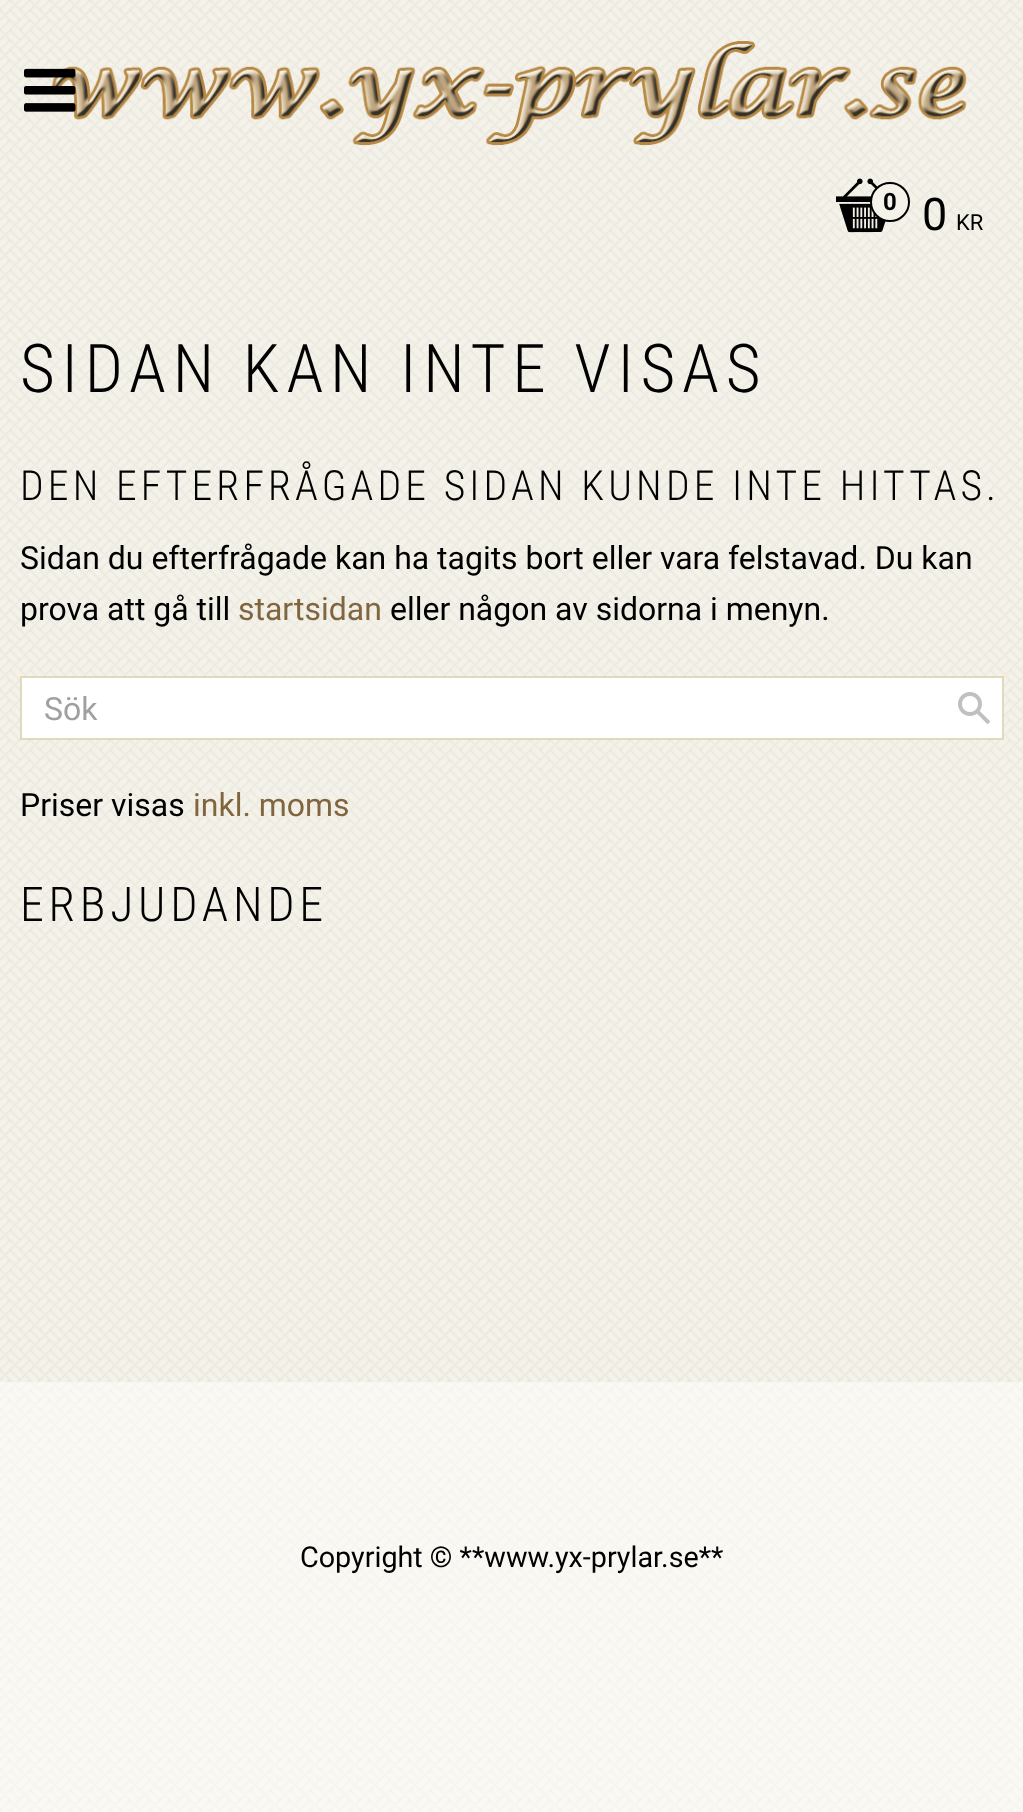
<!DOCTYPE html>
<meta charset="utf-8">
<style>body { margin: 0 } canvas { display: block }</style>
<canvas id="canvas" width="1023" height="1812"></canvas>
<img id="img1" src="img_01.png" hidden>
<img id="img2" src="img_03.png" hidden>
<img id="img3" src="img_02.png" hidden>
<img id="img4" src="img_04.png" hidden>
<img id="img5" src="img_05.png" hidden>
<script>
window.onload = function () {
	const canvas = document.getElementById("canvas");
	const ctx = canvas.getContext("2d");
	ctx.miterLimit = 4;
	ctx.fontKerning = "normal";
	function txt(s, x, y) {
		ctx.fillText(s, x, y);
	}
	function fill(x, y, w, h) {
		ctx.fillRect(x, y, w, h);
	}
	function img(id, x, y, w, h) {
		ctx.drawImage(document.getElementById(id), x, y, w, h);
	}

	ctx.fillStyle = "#F5F3E9";
	fill(0, 0, 1023, 1812);
	img("img1", 0, 0, 1023, 1812);
	img("img2", 51, 41, 916, 105);
	img("img3", 24, 68, 52, 44);
	img("img4", 836, 178, 50, 55);
	ctx.beginPath();
	ctx.arc(890, 202, 19, 0, Math.PI * 2);
	ctx.fill();
	ctx.strokeStyle = "#000000";
	ctx.lineWidth = 2;
	ctx.stroke();
	ctx.fillStyle = "#FFFFFF";
	ctx.beginPath();
	ctx.rect(21, 677, 982, 62);
	ctx.fill();
	ctx.strokeStyle = "#E0DABB";
	ctx.stroke();
	img("img5", 958, 692, 32, 32);
	ctx.fillStyle = "rgba(255, 255, 255, 0.5)";
	fill(0, 1382, 1023, 430);
	ctx.font = "bold 24px Roboto";
	ctx.fillStyle = "#000000";
	txt("0", 883, 210);
	ctx.font = "45px Roboto";
	txt("0", 922, 230);
	ctx.font = "22px Roboto";
	txt("KR", 956, 230);
	ctx.letterSpacing = "6.75px";
	ctx.font = "300 67.25px Roboto Condensed";
	txt("SIDAN KAN INTE VISAS", 20, 392);
	ctx.letterSpacing = "4.15px";
	ctx.font = "300 41.6px Roboto Condensed";
	txt("DEN EFTERFRÅGADE SIDAN KUNDE INTE HITTAS.", 20, 500);
	ctx.letterSpacing = "0px";
	ctx.font = "32px Roboto";
	txt("Sidan du efterfrågade kan ha tagits bort eller vara felstavad. Du kan", 20, 569);
	txt("prova att gå till", 20, 620);
	ctx.fillStyle = "#81653F";
	txt("startsidan", 238, 620);
	ctx.fillStyle = "#000000";
	txt("eller någon av sidorna i menyn.", 390, 620);
	ctx.fillStyle = "#A0A0A0";
	txt("Sök", 44, 720);
	ctx.fillStyle = "#000000";
	txt("Priser visas", 20, 816);
	ctx.fillStyle = "#81653F";
	txt("inkl. moms", 193, 816);
	ctx.letterSpacing = "4.75px";
	ctx.font = "300 48px Roboto Condensed";
	ctx.fillStyle = "#000000";
	txt("ERBJUDANDE", 20, 921);
	ctx.letterSpacing = "0px";
	ctx.font = "28.75px Roboto";
	txt("Copyright © **www.yx-prylar.se**", 300, 1567);
};
</script>
